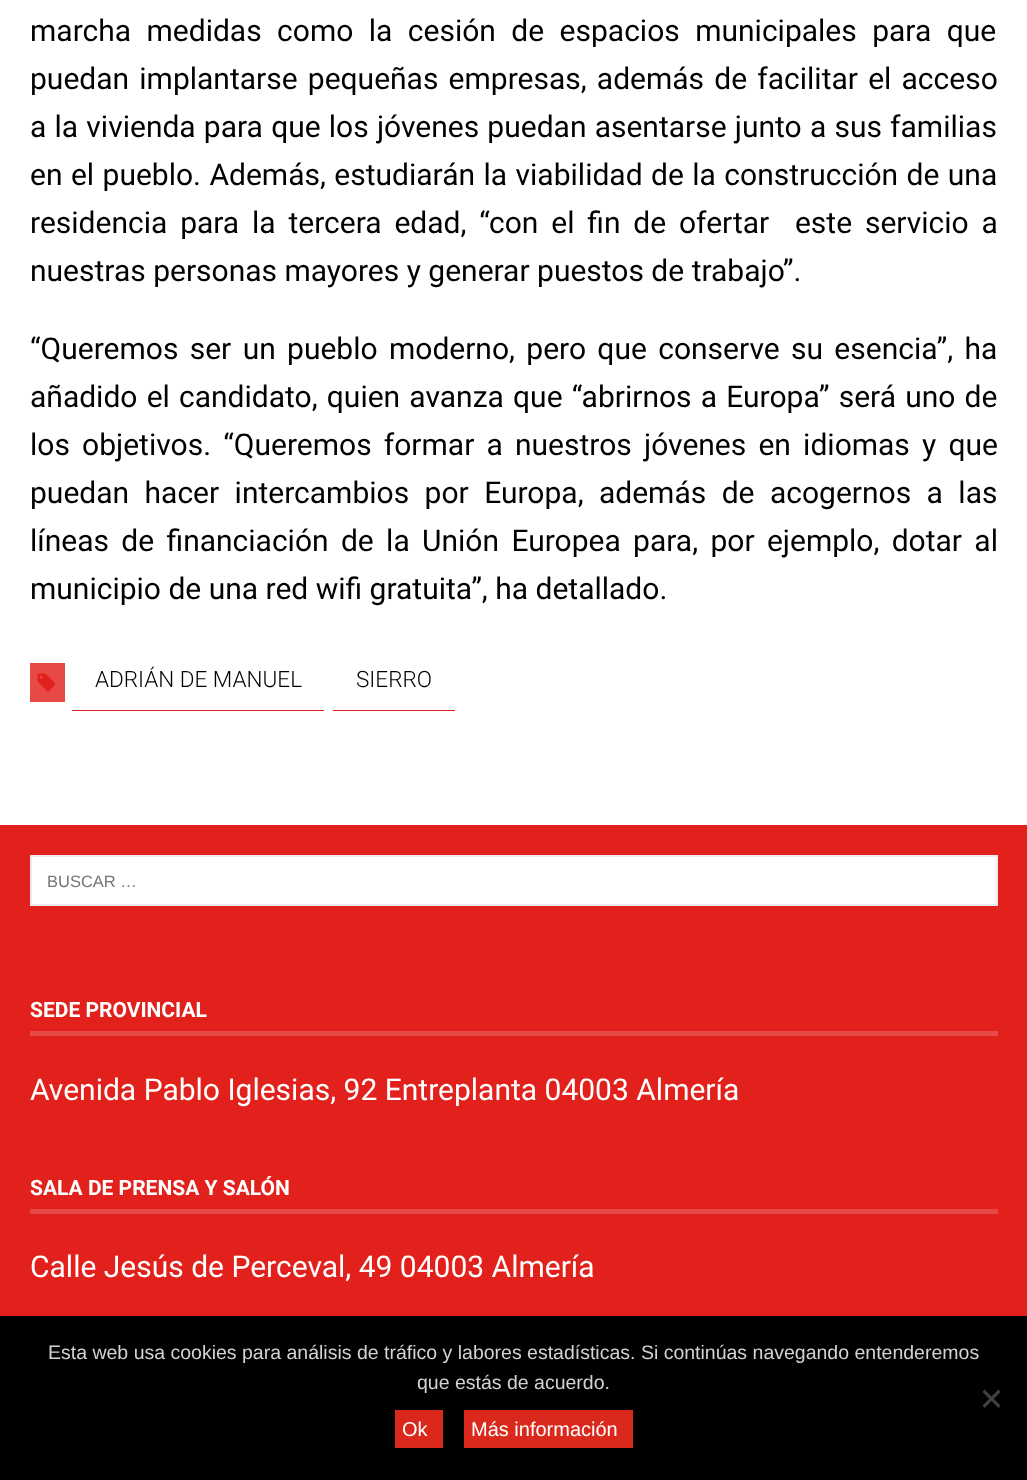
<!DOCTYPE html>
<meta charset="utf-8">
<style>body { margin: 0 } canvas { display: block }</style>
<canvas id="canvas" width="1027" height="1480"></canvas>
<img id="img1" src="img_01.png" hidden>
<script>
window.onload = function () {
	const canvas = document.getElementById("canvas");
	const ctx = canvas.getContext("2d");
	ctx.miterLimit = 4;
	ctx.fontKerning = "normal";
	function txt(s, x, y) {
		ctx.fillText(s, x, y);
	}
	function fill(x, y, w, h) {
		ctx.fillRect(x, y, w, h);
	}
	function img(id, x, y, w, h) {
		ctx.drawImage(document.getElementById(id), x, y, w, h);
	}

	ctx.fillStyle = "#E2211C";
	fill(0, 0, 1027, 1480);
	ctx.fillStyle = "#FFFFFF";
	fill(0, 0, 1027, 825);
	ctx.fillStyle = "#E64946";
	fill(30, 663, 35, 39);
	img("img1", 37, 673, 19, 19);
	ctx.fillStyle = "#E2211C";
	fill(72, 710, 252, 1);
	fill(333, 710, 122, 1);
	ctx.fillStyle = "#FFFFFF";
	ctx.beginPath();
	ctx.rect(31, 856, 966, 49);
	ctx.fill();
	ctx.strokeStyle = "#EBEBEB";
	ctx.lineWidth = 2;
	ctx.stroke();
	ctx.fillStyle = "#E64946";
	fill(30, 1031, 968, 5);
	fill(30, 1209, 968, 5);
	ctx.fillStyle = "#000000";
	fill(0, 1316, 1027, 164);
	ctx.fillStyle = "#404040";
	ctx.beginPath();
	ctx.moveTo(998.5, 1389.5);
	ctx.lineTo(1000.5, 1392);
	ctx.lineTo(984.5, 1408);
	ctx.lineTo(982.5, 1405.5);
	ctx.closePath();
	ctx.fill();
	ctx.beginPath();
	ctx.moveTo(982.5, 1392);
	ctx.lineTo(984.5, 1389.5);
	ctx.lineTo(1000.5, 1405.5);
	ctx.lineTo(998.5, 1408);
	ctx.closePath();
	ctx.fill();
	ctx.fillStyle = "#DA291C";
	fill(395, 1410, 48, 38);
	fill(464, 1410, 169, 38);
	ctx.wordSpacing = "8px";
	ctx.font = "30px Roboto";
	ctx.fillStyle = "#000000";
	txt("marcha medidas como la cesión de espacios municipales para que", 30, 41);
	ctx.wordSpacing = "2.75px";
	txt("puedan implantarse pequeñas empresas, además de facilitar el acceso", 30, 89);
	ctx.wordSpacing = "0.75px";
	txt("a la vivienda para que los jóvenes puedan asentarse junto a sus familias", 30, 137);
	ctx.wordSpacing = "1px";
	txt("en el pueblo. Además, estudiarán la viabilidad de la construcción de una", 30, 185);
	ctx.wordSpacing = "5.4px";
	txt("residencia para la tercera edad, “con el fin de ofertar  este servicio a", 30, 233);
	ctx.wordSpacing = "0px";
	txt("nuestras personas mayores y generar puestos de trabajo”.", 30, 281);
	ctx.wordSpacing = "3.9px";
	txt("“Queremos ser un pueblo moderno, pero que conserve su esencia”, ha", 30, 359);
	ctx.wordSpacing = "1.75px";
	txt("añadido el candidato, quien avanza que “abrirnos a Europa” será uno de", 30, 407);
	ctx.wordSpacing = "4.75px";
	txt("los objetivos. “Queremos formar a nuestros jóvenes en idiomas y que", 30, 455);
	ctx.wordSpacing = "8px";
	txt("puedan hacer intercambios por Europa, además de acogernos a las", 30, 503);
	ctx.wordSpacing = "4.9px";
	txt("líneas de financiación de la Unión Europea para, por ejemplo, dotar al", 30, 551);
	ctx.wordSpacing = "0px";
	txt("municipio de una red wifi gratuita”, ha detallado.", 30, 599);
	ctx.font = "300 22.5px Roboto";
	txt("ADRIÁN DE MANUEL", 95, 687);
	txt("SIERRO", 356, 687);
	ctx.font = "16.5px Liberation Sans";
	ctx.fillStyle = "#757575";
	txt("BUSCAR …", 47, 887);
	ctx.font = "bold 21px Roboto";
	ctx.fillStyle = "#FFFFFF";
	txt("SEDE PROVINCIAL", 30, 1017);
	ctx.font = "30px Roboto";
	txt("Avenida Pablo Iglesias, 92 Entreplanta 04003 Almería", 30, 1100);
	ctx.font = "bold 21px Roboto";
	txt("SALA DE PRENSA Y SALÓN", 30, 1195);
	ctx.font = "30px Roboto";
	txt("Calle Jesús de Perceval, 49 04003 Almería", 30, 1277);
	ctx.font = "19.5px Liberation Sans";
	ctx.fillStyle = "#D3D3D3";
	txt("Esta web usa cookies para análisis de tráfico y labores estadísticas. Si continúas navegando entenderemos", 48, 1359);
	txt("que estás de acuerdo.", 417, 1389);
	ctx.font = "20px Liberation Sans";
	ctx.fillStyle = "#FFFFFF";
	txt("Ok", 402, 1436);
	txt("Más información", 471, 1436);
};
</script>
